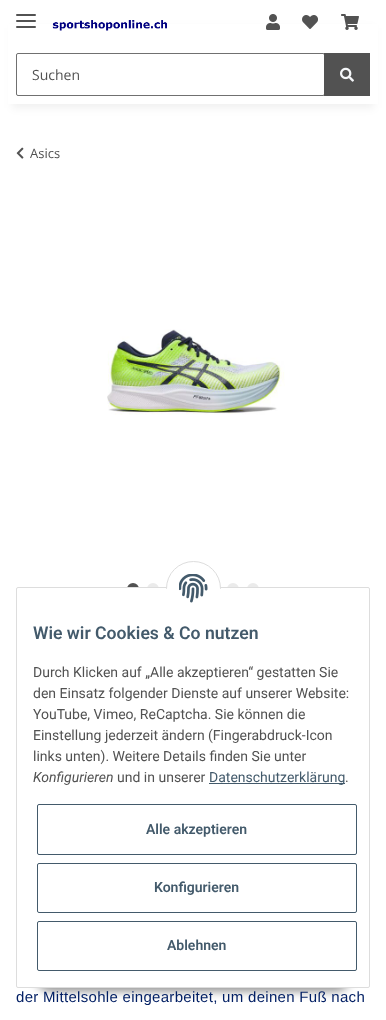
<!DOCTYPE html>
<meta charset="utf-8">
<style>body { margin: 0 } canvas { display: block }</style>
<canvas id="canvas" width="386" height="1020"></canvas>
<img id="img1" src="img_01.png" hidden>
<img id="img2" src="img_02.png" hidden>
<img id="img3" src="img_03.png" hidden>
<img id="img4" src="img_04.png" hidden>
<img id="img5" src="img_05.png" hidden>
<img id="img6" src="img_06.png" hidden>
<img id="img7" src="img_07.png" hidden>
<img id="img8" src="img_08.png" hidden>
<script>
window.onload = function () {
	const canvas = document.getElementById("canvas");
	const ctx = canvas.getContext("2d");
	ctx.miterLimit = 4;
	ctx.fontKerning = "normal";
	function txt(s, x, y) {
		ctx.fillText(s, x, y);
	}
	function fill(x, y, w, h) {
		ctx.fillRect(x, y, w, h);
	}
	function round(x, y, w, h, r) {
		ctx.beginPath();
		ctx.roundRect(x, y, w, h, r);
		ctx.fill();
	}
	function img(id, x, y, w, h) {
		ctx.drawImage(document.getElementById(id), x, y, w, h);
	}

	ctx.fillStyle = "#FFFFFF";
	fill(0, 0, 386, 1020);
	ctx.fillStyle = "rgba(0, 0, 0, 0.06)";
	ctx.filter = "blur(4.5px)";
	ctx.beginPath();
	ctx.rect(12, 28, 362, 80);
	ctx.fill();
	ctx.filter = "none";
	ctx.fillStyle = "#FFFFFF";
	fill(8, 24, 370, 80);
	ctx.fillStyle = "#525252";
	round(16, 20, 20, 2, 1);
	round(16, 14, 20, 2, 1);
	round(16, 26, 20, 2, 1);
	img("img1", 52, 20, 115, 11);
	img("img2", 266, 14, 14, 16);
	img("img3", 302, 15, 16, 14);
	img("img4", 341, 14, 18, 16);
	ctx.beginPath();
	ctx.roundRect(16.5, 53.5, 308, 42, 1.5);
	ctx.strokeStyle = "#707070";
	ctx.stroke();
	fill(324, 53, 46, 43);
	img("img5", 340, 67, 14, 15);
	img("img6", 16, 147, 8, 12);
	img("img7", 107, 329, 178, 86);
	ctx.beginPath();
	ctx.arc(133, 589, 5, 0, Math.PI * 2);
	ctx.fill();
	ctx.strokeStyle = "#525252";
	ctx.lineWidth = 2;
	ctx.stroke();
	ctx.fillStyle = "#EBEBEB";
	ctx.beginPath();
	ctx.arc(153, 589, 5, 0, Math.PI * 2);
	ctx.fill();
	ctx.strokeStyle = "#EBEBEB";
	ctx.stroke();
	ctx.beginPath();
	ctx.arc(233, 589, 5, 0, Math.PI * 2);
	ctx.fill();
	ctx.stroke();
	ctx.beginPath();
	ctx.arc(253, 589, 5, 0, Math.PI * 2);
	ctx.fill();
	ctx.stroke();
	ctx.fillStyle = "rgba(0, 0, 0, 0.45)";
	ctx.filter = "blur(5px)";
	ctx.beginPath();
	ctx.roundRect(35, 959, 316, 32, 16);
	ctx.fill();
	ctx.filter = "none";
	ctx.fillStyle = "#FFFFFF";
	ctx.beginPath();
	ctx.roundRect(16.5, 587.5, 353, 400, 1.5);
	ctx.fill();
	ctx.strokeStyle = "#DDDDDD";
	ctx.lineWidth = 1;
	ctx.stroke();
	ctx.beginPath();
	ctx.arc(193.5, 588.5, 27, 0, Math.PI * 2);
	ctx.fill();
	ctx.stroke();
	fill(166, 589, 55, 27);
	img("img8", 179, 574, 29, 29);
	ctx.fillStyle = "#435A6B";
	fill(209, 783, 136, 1);
	ctx.beginPath();
	ctx.roundRect(37.5, 804.5, 319, 50, 1.5);
	ctx.strokeStyle = "#435A6B";
	ctx.stroke();
	ctx.beginPath();
	ctx.roundRect(37.5, 863.5, 319, 49, 1.5);
	ctx.stroke();
	ctx.beginPath();
	ctx.roundRect(37.5, 921.5, 319, 49, 1.5);
	ctx.stroke();
	ctx.font = "14px Open Sans";
	ctx.fillStyle = "#525252";
	txt("Suchen", 32, 80);
	ctx.font = "13px Open Sans";
	txt("Asics", 30, 158);
	ctx.letterSpacing = "0.3px";
	ctx.font = "15px Liberation Sans";
	ctx.fillStyle = "#001E63";
	txt("der Mittelsohle eingearbeitet, um deinen Fuß nach", 16, 1002);
	ctx.letterSpacing = "0px";
	ctx.font = "600 17.6px Roboto";
	ctx.fillStyle = "#435A6B";
	txt("Wie wir Cookies & Co nutzen", 33, 639);
	ctx.font = "14px Roboto";
	ctx.fillStyle = "#525252";
	txt("Durch Klicken auf „Alle akzeptieren“ gestatten Sie", 33, 677);
	txt("den Einsatz folgender Dienste auf unserer Website:", 33, 698);
	txt("YouTube, Vimeo, ReCaptcha. Sie können die", 33, 719);
	txt("Einstellung jederzeit ändern (Fingerabdruck-Icon", 33, 740);
	txt("links unten). Weitere Details finden Sie unter", 33, 761);
	ctx.font = "italic 14px Roboto";
	txt("Konfigurieren", 33, 782);
	ctx.font = "14px Roboto";
	txt("und in unserer", 117, 782);
	ctx.fillStyle = "#435A6B";
	txt("Datenschutzerklärung", 209, 782);
	ctx.fillStyle = "#525252";
	txt(".", 345, 782);
	ctx.font = "600 14px Roboto";
	ctx.fillStyle = "#435A6B";
	txt("Alle akzeptieren", 146, 834);
	txt("Konfigurieren", 154, 892);
	txt("Ablehnen", 167, 950);
};
</script>
